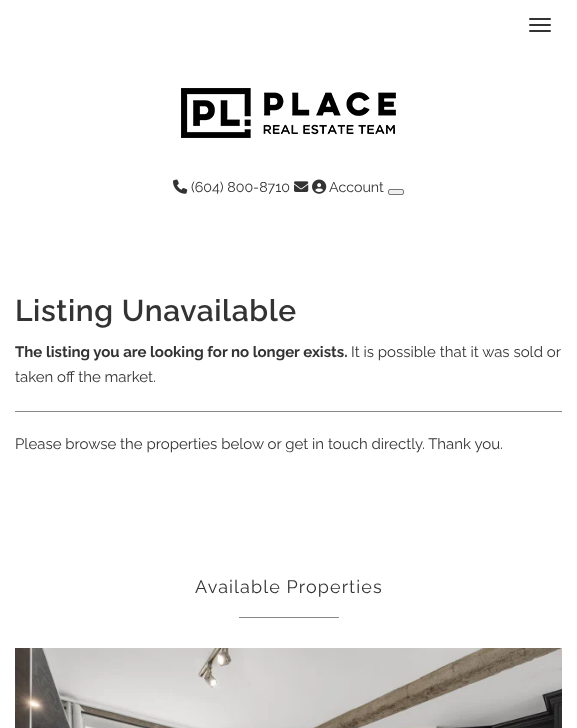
<!DOCTYPE html>
<meta charset="utf-8">
<style>body { margin: 0 } canvas { display: block }</style>
<canvas id="canvas" width="577" height="728"></canvas>
<img id="img1" src="img_01.png" hidden>
<img id="img2" src="img_02.png" hidden>
<img id="img3" src="img_03.png" hidden>
<img id="img4" src="img_04.png" hidden>
<img id="img5" src="img_05.png" hidden>
<script>
window.onload = function () {
	const canvas = document.getElementById("canvas");
	const ctx = canvas.getContext("2d");
	ctx.miterLimit = 4;
	ctx.fontKerning = "normal";
	function txt(s, x, y) {
		ctx.fillText(s, x, y);
	}
	function fill(x, y, w, h) {
		ctx.fillRect(x, y, w, h);
	}
	function round(x, y, w, h, r) {
		ctx.beginPath();
		ctx.roundRect(x, y, w, h, r);
		ctx.fill();
	}
	function img(id, x, y, w, h) {
		ctx.drawImage(document.getElementById(id), x, y, w, h);
	}

	ctx.fillStyle = "#FFFFFF";
	fill(0, 0, 577, 728);
	ctx.fillStyle = "#333333";
	round(529, 18, 22, 2, 1);
	round(529, 24, 22, 2, 1);
	round(529, 30, 22, 2, 1);
	img("img1", 181, 88, 215, 50);
	img("img2", 173, 179, 15, 15);
	img("img3", 294, 181, 15, 11);
	img("img4", 312, 179, 15, 15);
	ctx.fillStyle = "#EFEFEF";
	ctx.beginPath();
	ctx.roundRect(388.5, 189.5, 15, 5, 1.5);
	ctx.fill();
	ctx.strokeStyle = "#767676";
	ctx.stroke();
	ctx.fillStyle = "#888888";
	fill(15, 411, 547, 1);
	fill(239, 617, 100, 1);
	img("img5", 15, 648, 547, 80);
	ctx.font = "14.25px Raleway";
	ctx.fillStyle = "#333333";
	txt("(604) 800-8710", 191, 192);
	txt("Account", 329, 192);
	ctx.letterSpacing = "0.6px";
	ctx.font = "600 30px Raleway";
	txt("Listing Unavailable", 15, 321);
	ctx.letterSpacing = "0px";
	ctx.font = "bold 15px Raleway";
	txt("The listing you are looking for no longer exists.", 15, 357);
	ctx.font = "15px Raleway";
	txt("It is possible that it was sold or", 351, 357);
	txt("taken off the market.", 15, 382);
	txt("Please browse the properties below or get in touch directly. Thank you.", 15, 449);
	ctx.letterSpacing = "1.1px";
	ctx.font = "18px Raleway";
	txt("Available Properties", 195, 593);
};
</script>
